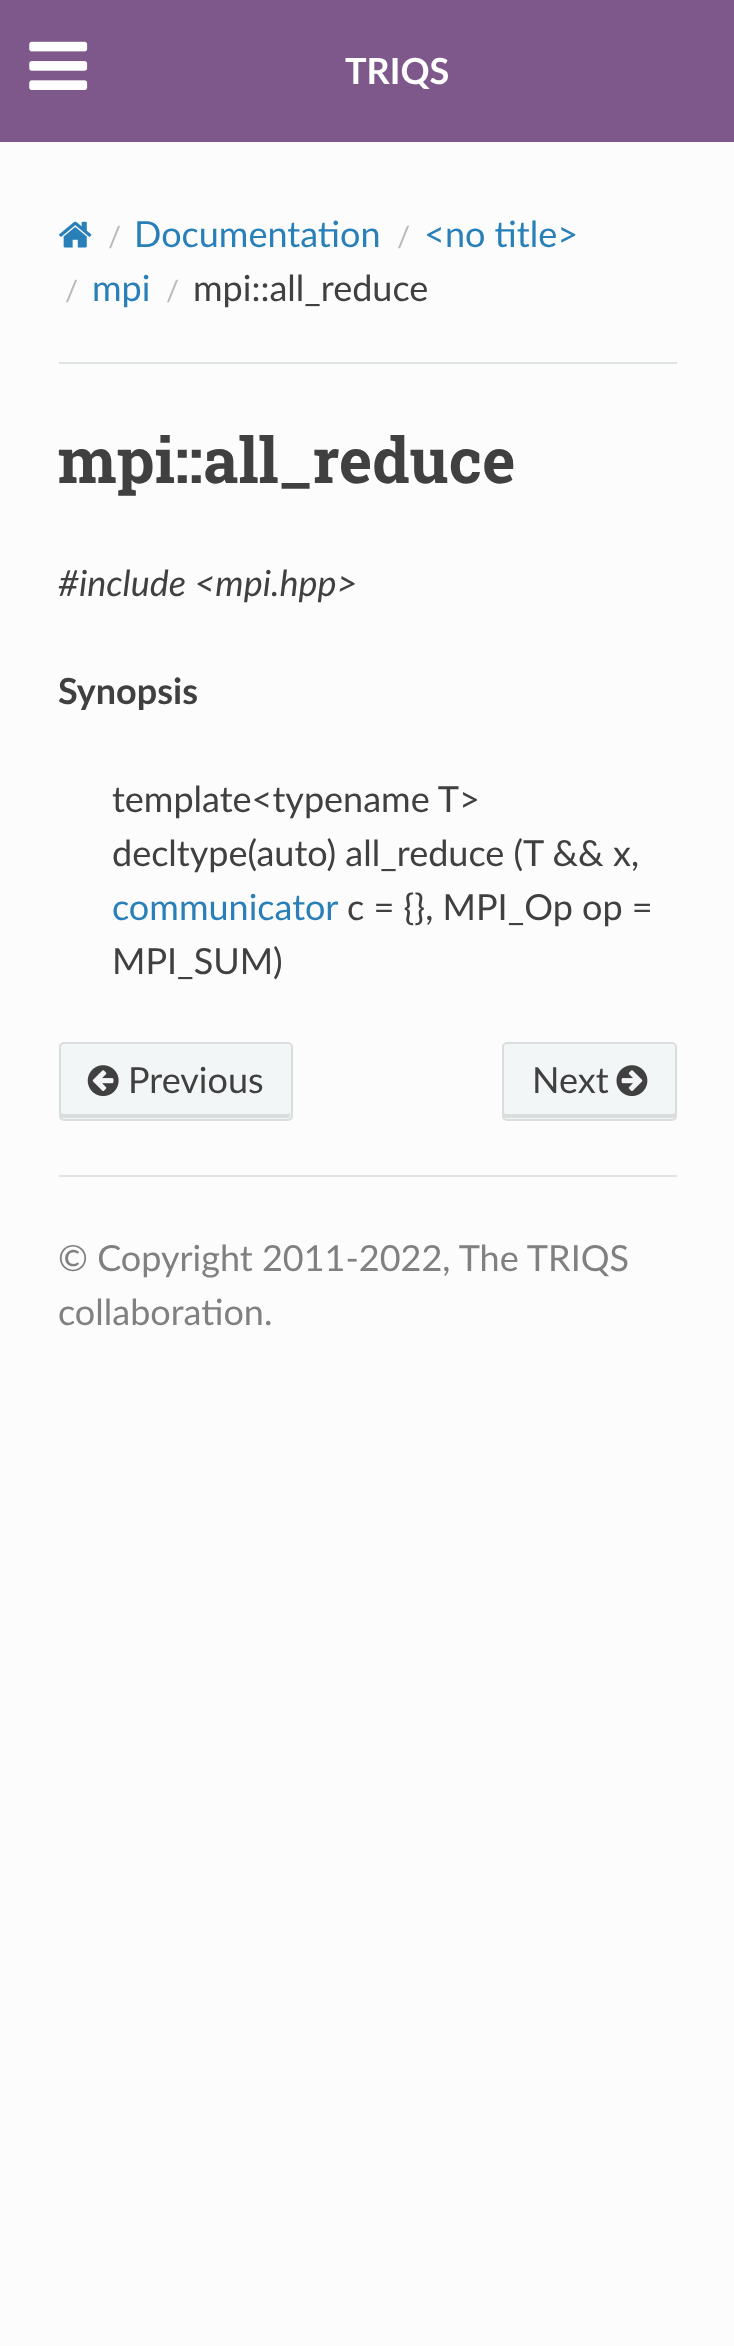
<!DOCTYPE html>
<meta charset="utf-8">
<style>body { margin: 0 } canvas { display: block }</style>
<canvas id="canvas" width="734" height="2346"></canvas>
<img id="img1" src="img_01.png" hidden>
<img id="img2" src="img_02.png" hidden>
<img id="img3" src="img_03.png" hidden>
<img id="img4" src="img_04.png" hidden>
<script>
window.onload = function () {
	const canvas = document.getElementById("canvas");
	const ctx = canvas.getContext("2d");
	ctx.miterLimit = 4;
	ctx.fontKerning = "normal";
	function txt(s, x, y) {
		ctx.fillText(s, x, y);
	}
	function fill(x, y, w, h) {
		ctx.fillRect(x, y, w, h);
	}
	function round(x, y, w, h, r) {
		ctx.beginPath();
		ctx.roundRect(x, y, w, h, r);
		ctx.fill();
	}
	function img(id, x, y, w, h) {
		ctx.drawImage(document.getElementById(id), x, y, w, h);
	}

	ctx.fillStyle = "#FCFCFC";
	fill(0, 0, 734, 2346);
	ctx.fillStyle = "#7E588A";
	fill(0, 0, 734, 142);
	img("img1", 29, 41, 59, 49);
	img("img2", 59, 221, 33, 27);
	ctx.fillStyle = "#E1E4E5";
	fill(59, 362, 618, 2);
	ctx.fillStyle = "#F3F6F6";
	round(59, 1042, 234, 79, 5);
	ctx.fillStyle = "#DBDDDD";
	ctx.beginPath();
	ctx.moveTo(61, 1112);
	ctx.lineTo(61, 1116);
	ctx.bezierCurveTo(61, 1117, 62, 1118, 63, 1118);
	ctx.lineTo(288, 1118);
	ctx.bezierCurveTo(289, 1118, 290, 1117, 290, 1116);
	ctx.lineTo(290, 1112);
	ctx.bezierCurveTo(290, 1113, 289, 1114, 288, 1114);
	ctx.lineTo(63, 1114);
	ctx.bezierCurveTo(62, 1114, 61, 1113, 61, 1112);
	ctx.closePath();
	ctx.fill();
	ctx.beginPath();
	ctx.roundRect(60, 1043, 232, 77, 4);
	ctx.strokeStyle = "rgba(0, 0, 0, 0.1)";
	ctx.lineWidth = 2;
	ctx.stroke();
	img("img3", 87, 1065, 32, 32);
	ctx.fillStyle = "#F3F6F6";
	round(502, 1042, 175, 79, 5);
	ctx.fillStyle = "#DBDDDD";
	ctx.beginPath();
	ctx.moveTo(504, 1112);
	ctx.lineTo(504, 1116);
	ctx.bezierCurveTo(504, 1117, 505, 1118, 506, 1118);
	ctx.lineTo(673, 1118);
	ctx.bezierCurveTo(674, 1118, 675, 1117, 675, 1116);
	ctx.lineTo(675, 1112);
	ctx.bezierCurveTo(675, 1113, 674, 1114, 673, 1114);
	ctx.lineTo(506, 1114);
	ctx.bezierCurveTo(505, 1114, 504, 1113, 504, 1112);
	ctx.closePath();
	ctx.fill();
	ctx.beginPath();
	ctx.roundRect(503, 1043, 173, 77, 4);
	ctx.stroke();
	img("img4", 616, 1065, 32, 32);
	ctx.fillStyle = "#E1E4E5";
	fill(59, 1175, 618, 2);
	ctx.font = "bold 36px Lato";
	ctx.fillStyle = "#FFFFFF";
	txt("TRIQS", 345, 84);
	ctx.font = "29px Lato";
	ctx.fillStyle = "#BBBBBB";
	txt("/", 108, 247);
	ctx.font = "36px Lato";
	ctx.fillStyle = "#2980B9";
	txt("Documentation", 134, 247);
	ctx.font = "29px Lato";
	ctx.fillStyle = "#BBBBBB";
	txt("/", 397, 247);
	ctx.font = "36px Lato";
	ctx.fillStyle = "#2980B9";
	txt("<no title>", 424, 247);
	ctx.font = "29px Lato";
	ctx.fillStyle = "#BBBBBB";
	txt("/", 65, 301);
	ctx.font = "36px Lato";
	ctx.fillStyle = "#2980B9";
	txt("mpi", 92, 301);
	ctx.font = "29px Lato";
	ctx.fillStyle = "#BBBBBB";
	txt("/", 166, 301);
	ctx.font = "36px Lato";
	ctx.fillStyle = "#404040";
	txt("mpi::all_reduce", 193, 301);
	ctx.font = "bold 63px Roboto Slab";
	txt("mpi::all_reduce", 58, 483);
	ctx.font = "italic 36px Lato";
	txt("#include <mpi.hpp>", 58, 596);
	ctx.font = "bold 36px Lato";
	txt("Synopsis", 58, 704);
	ctx.font = "36px Lato";
	txt("template<typename T>", 112, 812);
	txt("decltype(auto) all_reduce (T && x,", 112, 866);
	ctx.fillStyle = "#2980B9";
	txt("communicator", 112, 920);
	ctx.fillStyle = "#404040";
	txt("c = {}, MPI_Op op =", 347, 920);
	txt("MPI_SUM)", 112, 974);
	txt("Previous", 128, 1093);
	txt("Next", 532, 1093);
	ctx.fillStyle = "#808080";
	txt("© Copyright 2011-2022, The TRIQS", 58, 1271);
	txt("collaboration.", 58, 1325);
};
</script>
